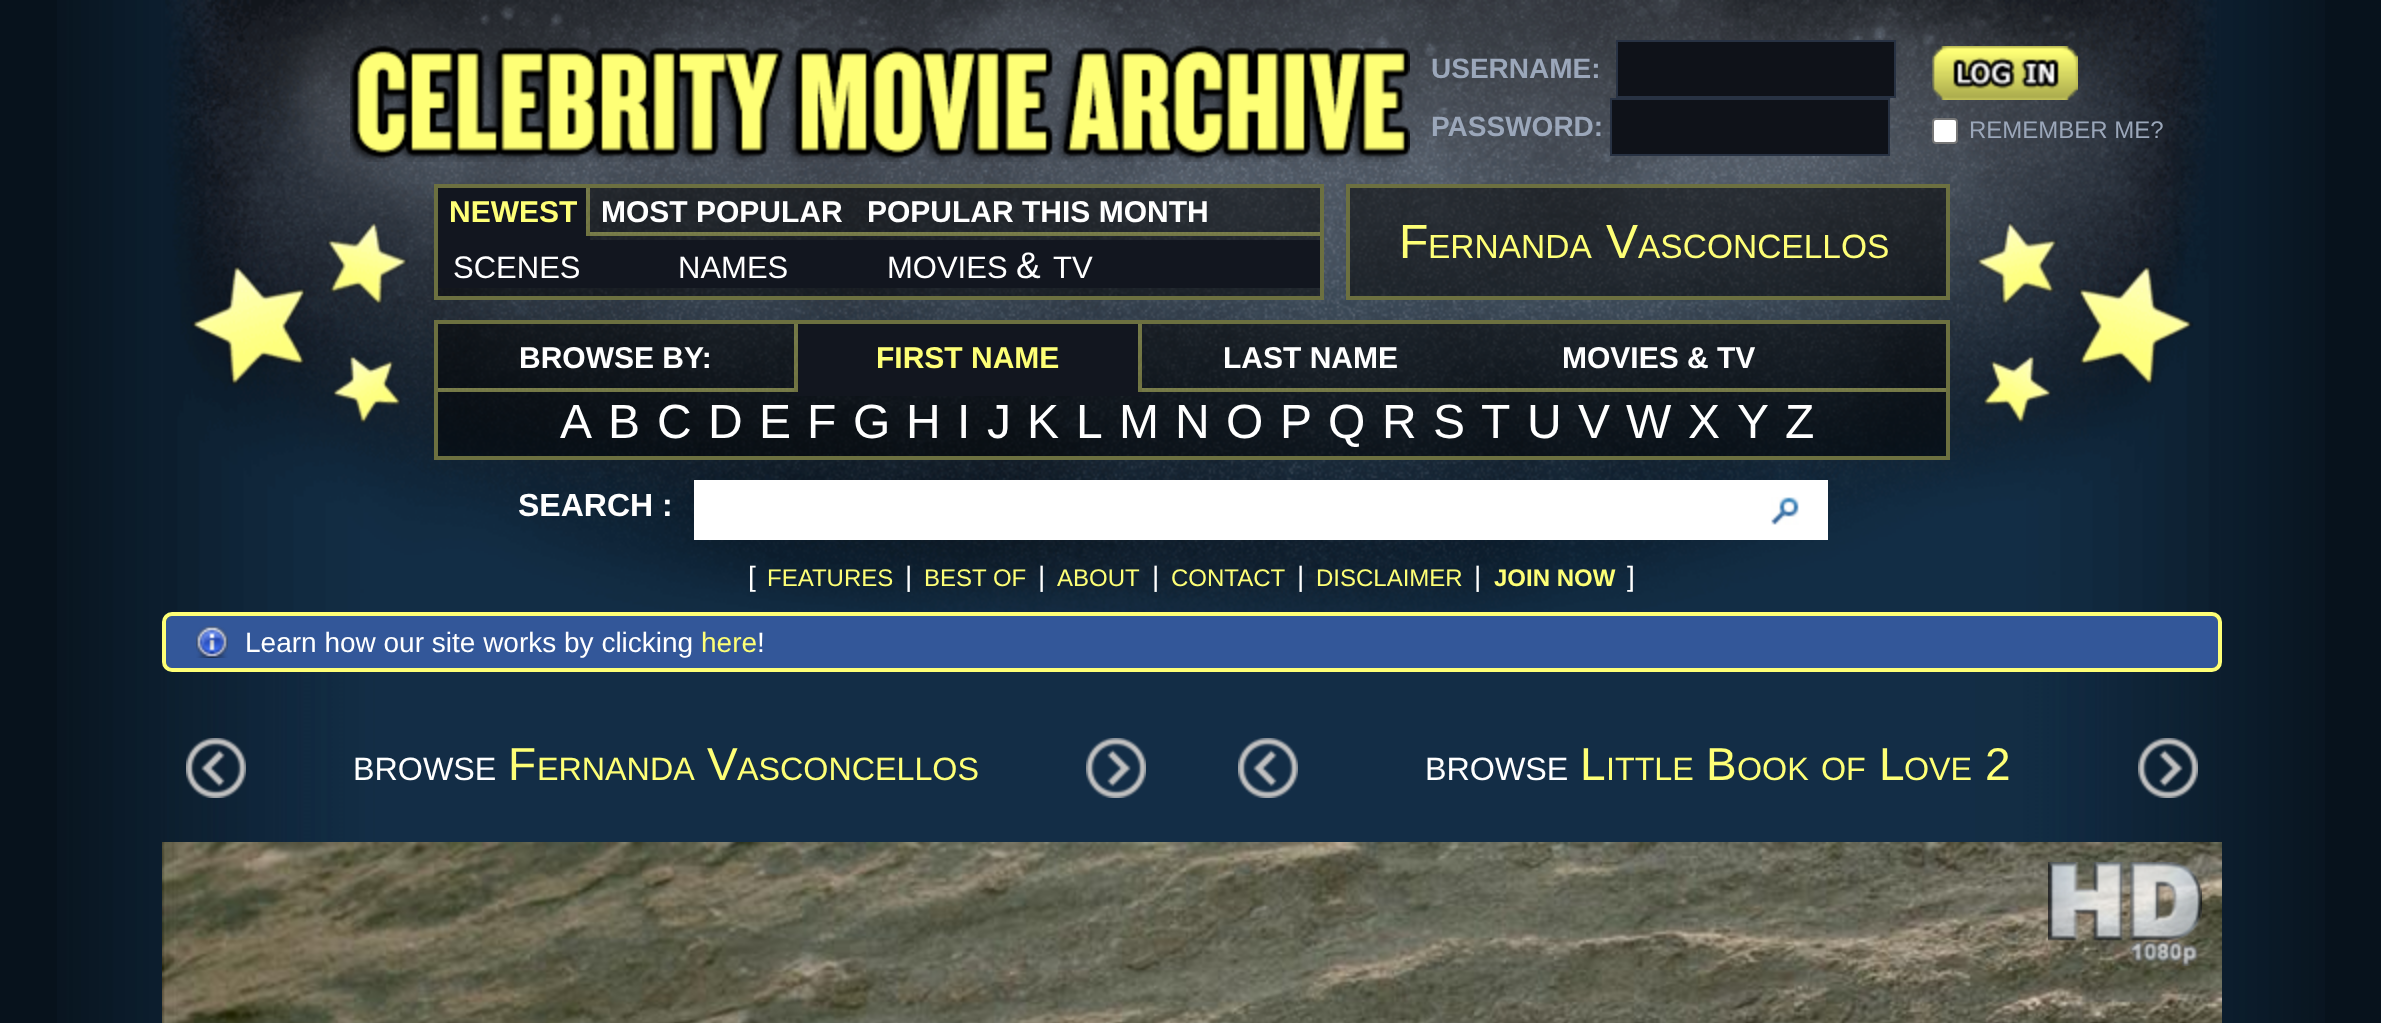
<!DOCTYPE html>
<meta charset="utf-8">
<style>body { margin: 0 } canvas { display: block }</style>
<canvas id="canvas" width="2381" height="1023"></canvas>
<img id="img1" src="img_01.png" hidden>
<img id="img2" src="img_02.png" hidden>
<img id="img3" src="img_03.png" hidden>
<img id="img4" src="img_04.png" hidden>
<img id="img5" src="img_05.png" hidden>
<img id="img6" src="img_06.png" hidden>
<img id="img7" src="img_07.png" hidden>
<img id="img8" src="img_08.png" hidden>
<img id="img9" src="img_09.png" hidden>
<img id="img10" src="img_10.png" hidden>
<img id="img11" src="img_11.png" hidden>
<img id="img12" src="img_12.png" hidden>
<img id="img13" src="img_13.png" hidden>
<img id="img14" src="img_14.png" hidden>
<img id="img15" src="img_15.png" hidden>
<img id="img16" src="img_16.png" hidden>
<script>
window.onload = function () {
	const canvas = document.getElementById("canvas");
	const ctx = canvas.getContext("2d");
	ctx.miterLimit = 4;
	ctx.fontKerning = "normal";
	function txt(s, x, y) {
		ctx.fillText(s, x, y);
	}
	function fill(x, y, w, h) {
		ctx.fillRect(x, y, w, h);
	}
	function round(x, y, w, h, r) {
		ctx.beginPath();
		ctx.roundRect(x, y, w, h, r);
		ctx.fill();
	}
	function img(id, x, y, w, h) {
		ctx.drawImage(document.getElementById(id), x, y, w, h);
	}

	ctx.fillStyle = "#07121C";
	fill(0, 0, 2381, 1023);
	img("img1", 57, 0, 2268, 1023);
	img("img2", 165, 0, 2052, 612);
	img("img3", 350, 45, 1060, 117);
	ctx.fillStyle = "#0F1219";
	ctx.beginPath();
	ctx.rect(1617, 41, 278, 56);
	ctx.fill();
	ctx.strokeStyle = "#283243";
	ctx.lineWidth = 2;
	ctx.stroke();
	ctx.beginPath();
	ctx.rect(1611, 99, 278, 56);
	ctx.fill();
	ctx.stroke();
	img("img4", 1932, 46, 146, 54);
	ctx.fillStyle = "#FFFFFF";
	ctx.beginPath();
	ctx.roundRect(1933, 119, 24, 24, 3);
	ctx.fill();
	ctx.strokeStyle = "#767676";
	ctx.stroke();
	ctx.fillStyle = "rgba(0, 0, 0, 0.5)";
	ctx.beginPath();
	ctx.rect(436, 186, 886, 112);
	ctx.fill();
	ctx.strokeStyle = "#6C7040";
	ctx.lineWidth = 4;
	ctx.stroke();
	img("img5", 590, 232, 730, 4);
	ctx.fillStyle = "#12161F";
	fill(438, 188, 152, 52);
	img("img6", 586, 188, 4, 48);
	fill(438, 240, 882, 48);
	ctx.fillStyle = "rgba(0, 0, 0, 0.5)";
	ctx.beginPath();
	ctx.rect(1348, 186, 600, 112);
	ctx.fill();
	ctx.stroke();
	ctx.beginPath();
	ctx.rect(436, 322, 1512, 136);
	ctx.fill();
	ctx.stroke();
	img("img7", 438, 388, 1508, 4);
	ctx.fillStyle = "#12161F";
	fill(794, 324, 348, 72);
	img("img8", 794, 324, 4, 68);
	img("img8", 1138, 324, 4, 68);
	ctx.fillStyle = "#FFFFFF";
	fill(694, 480, 1134, 60);
	img("img9", 1771, 497, 28, 28);
	ctx.fillStyle = "#335799";
	round(166, 616, 2052, 52, 6);
	img("img10", 196, 626, 32, 32);
	ctx.beginPath();
	ctx.roundRect(164, 614, 2056, 56, 8);
	ctx.strokeStyle = "#FEFF76";
	ctx.stroke();
	img("img11", 186, 738, 60, 60);
	img("img12", 1086, 738, 60, 60);
	img("img13", 1238, 738, 60, 60);
	img("img14", 2138, 738, 60, 60);
	img("img15", 162, 842, 2060, 181);
	img("img16", 2048, 862, 154, 104);
	ctx.font = "bold 28px Liberation Sans";
	ctx.fillStyle = "#9BA7BA";
	txt("USERNAME:", 1431, 78);
	txt("PASSWORD:", 1431, 136);
	ctx.font = "24px Liberation Sans";
	txt("REMEMBER ME?", 1969, 138);
	ctx.font = "bold 30px Liberation Sans";
	ctx.fillStyle = "#FEFF76";
	txt("NEWEST", 449, 222);
	ctx.font = "31px Liberation Sans";
	ctx.fillStyle = "#FFFFFF";
	txt("SCENES", 453, 278);
	txt("NAMES", 678, 278);
	txt("MOVIES", 887, 278);
	ctx.font = "37px Liberation Sans";
	txt("&", 1016, 278);
	ctx.font = "31px Liberation Sans";
	txt("TV", 1053, 278);
	ctx.font = "bold 30px Liberation Sans";
	txt("MOST POPULAR", 601, 222);
	txt("POPULAR THIS MONTH", 867, 222);
	ctx.font = "48px Liberation Sans";
	ctx.fillStyle = "#FEFF76";
	txt("F", 1399, 258);
	ctx.font = "33.5px Liberation Sans";
	txt("ERNANDA", 1428, 258);
	ctx.font = "48px Liberation Sans";
	txt("V", 1606, 258);
	ctx.font = "33.5px Liberation Sans";
	txt("ASCONCELLOS", 1638, 258);
	ctx.font = "bold 30px Liberation Sans";
	ctx.fillStyle = "#FFFFFF";
	txt("BROWSE BY:", 519, 368);
	ctx.fillStyle = "#FEFF76";
	txt("FIRST NAME", 876, 368);
	ctx.font = "48px Liberation Sans";
	ctx.fillStyle = "#FFFFFF";
	txt("A", 560, 438);
	txt("B", 608, 438);
	txt("C", 657, 438);
	txt("D", 708, 438);
	txt("E", 759, 438);
	txt("F", 807, 438);
	txt("G", 853, 438);
	txt("H", 906, 438);
	txt("I", 957, 438);
	txt("J", 987, 438);
	txt("K", 1027, 438);
	txt("L", 1076, 438);
	txt("M", 1119, 438);
	txt("N", 1175, 438);
	txt("O", 1226, 438);
	txt("P", 1280, 438);
	txt("Q", 1328, 438);
	txt("R", 1382, 438);
	txt("S", 1433, 438);
	txt("T", 1481, 438);
	txt("U", 1527, 438);
	txt("V", 1578, 438);
	txt("W", 1626, 438);
	txt("X", 1688, 438);
	txt("Y", 1737, 438);
	txt("Z", 1785, 438);
	ctx.font = "bold 30px Liberation Sans";
	txt("LAST NAME", 1223, 368);
	txt("MOVIES & TV", 1562, 368);
	ctx.font = "bold 32px Liberation Sans";
	txt("SEARCH :", 518, 516);
	ctx.font = "28px Liberation Sans";
	txt("[", 748, 586);
	ctx.font = "24px Liberation Sans";
	ctx.fillStyle = "#FEFF76";
	txt("FEATURES", 767, 586);
	ctx.font = "28px Liberation Sans";
	ctx.fillStyle = "#FFFFFF";
	txt("|", 905, 586);
	ctx.font = "24px Liberation Sans";
	ctx.fillStyle = "#FEFF76";
	txt("BEST OF", 924, 586);
	ctx.font = "28px Liberation Sans";
	ctx.fillStyle = "#FFFFFF";
	txt("|", 1038, 586);
	ctx.font = "24px Liberation Sans";
	ctx.fillStyle = "#FEFF76";
	txt("ABOUT", 1057, 586);
	ctx.font = "28px Liberation Sans";
	ctx.fillStyle = "#FFFFFF";
	txt("|", 1152, 586);
	ctx.font = "24px Liberation Sans";
	ctx.fillStyle = "#FEFF76";
	txt("CONTACT", 1171, 586);
	ctx.font = "28px Liberation Sans";
	ctx.fillStyle = "#FFFFFF";
	txt("|", 1297, 586);
	ctx.font = "24px Liberation Sans";
	ctx.fillStyle = "#FEFF76";
	txt("DISCLAIMER", 1316, 586);
	ctx.font = "28px Liberation Sans";
	ctx.fillStyle = "#FFFFFF";
	txt("|", 1474, 586);
	ctx.font = "bold 24px Liberation Sans";
	ctx.fillStyle = "#FEFF76";
	txt("JOIN NOW", 1494, 586);
	ctx.font = "28px Liberation Sans";
	ctx.fillStyle = "#FFFFFF";
	txt("]", 1627, 586);
	txt("Learn how our site works by clicking", 245, 652);
	ctx.fillStyle = "#FEFF76";
	txt("here", 701, 652);
	ctx.fillStyle = "#FFFFFF";
	txt("!", 757, 652);
	ctx.font = "32.25px Liberation Sans";
	txt("BROWSE", 353, 780);
	ctx.font = "46px Liberation Sans";
	ctx.fillStyle = "#FEFF76";
	txt("F", 508, 780);
	ctx.font = "32.25px Liberation Sans";
	txt("ERNANDA", 537, 780);
	ctx.font = "46px Liberation Sans";
	txt("V", 707, 780);
	ctx.font = "32.25px Liberation Sans";
	txt("ASCONCELLOS", 737, 780);
	ctx.fillStyle = "#FFFFFF";
	txt("BROWSE", 1425, 780);
	ctx.font = "46px Liberation Sans";
	ctx.fillStyle = "#FEFF76";
	txt("L", 1580, 780);
	ctx.font = "32.25px Liberation Sans";
	txt("ITTLE", 1606, 780);
	ctx.font = "46px Liberation Sans";
	txt("B", 1706, 780);
	ctx.font = "32.25px Liberation Sans";
	txt("OOK", 1737, 780);
	txt("OF", 1821, 780);
	ctx.font = "46px Liberation Sans";
	txt("L", 1879, 780);
	ctx.font = "32.25px Liberation Sans";
	txt("OVE", 1904, 780);
	ctx.font = "46px Liberation Sans";
	txt("2", 1985, 780);
};
</script>
